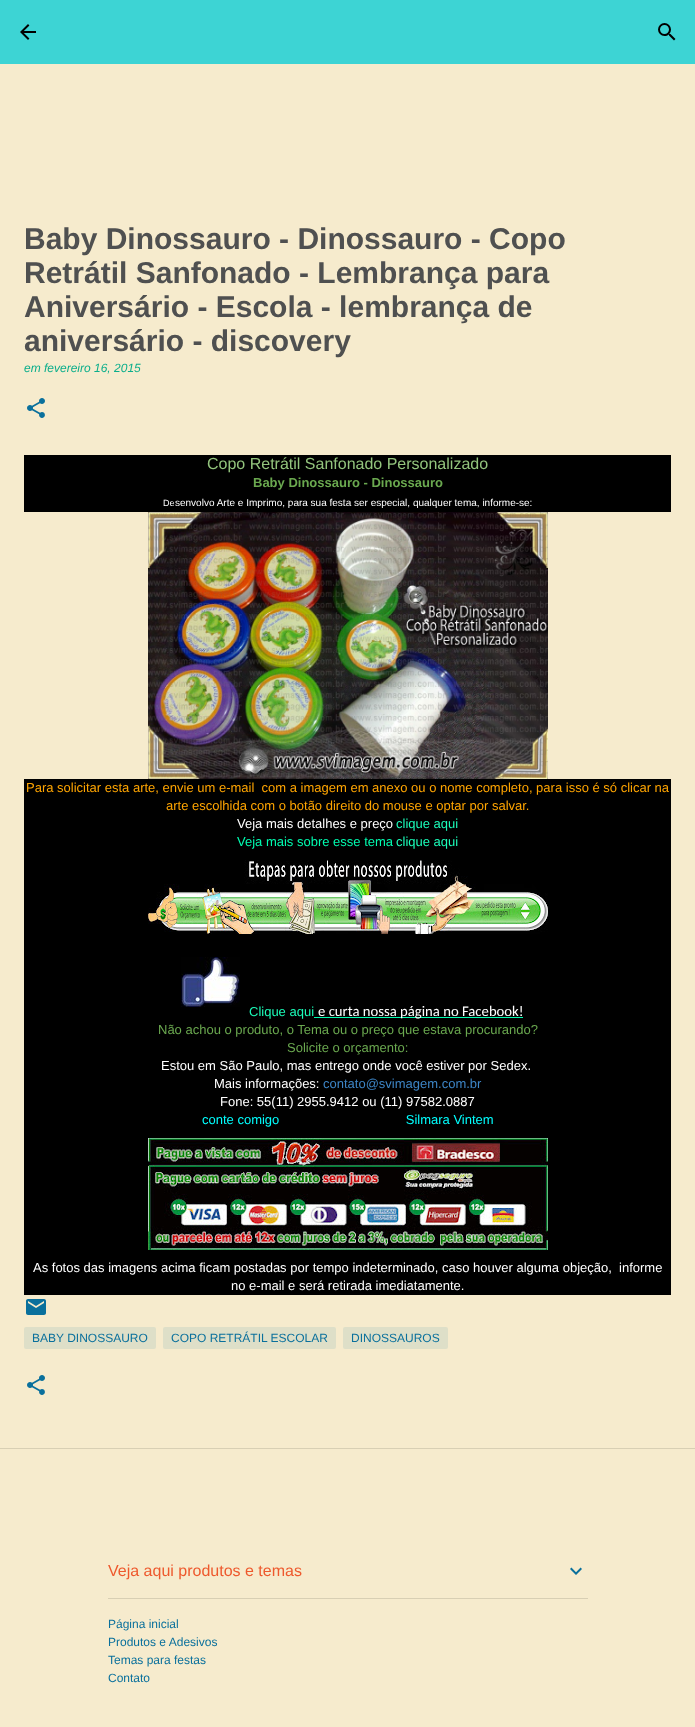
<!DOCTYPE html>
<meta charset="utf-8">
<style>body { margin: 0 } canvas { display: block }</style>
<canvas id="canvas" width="695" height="1727"></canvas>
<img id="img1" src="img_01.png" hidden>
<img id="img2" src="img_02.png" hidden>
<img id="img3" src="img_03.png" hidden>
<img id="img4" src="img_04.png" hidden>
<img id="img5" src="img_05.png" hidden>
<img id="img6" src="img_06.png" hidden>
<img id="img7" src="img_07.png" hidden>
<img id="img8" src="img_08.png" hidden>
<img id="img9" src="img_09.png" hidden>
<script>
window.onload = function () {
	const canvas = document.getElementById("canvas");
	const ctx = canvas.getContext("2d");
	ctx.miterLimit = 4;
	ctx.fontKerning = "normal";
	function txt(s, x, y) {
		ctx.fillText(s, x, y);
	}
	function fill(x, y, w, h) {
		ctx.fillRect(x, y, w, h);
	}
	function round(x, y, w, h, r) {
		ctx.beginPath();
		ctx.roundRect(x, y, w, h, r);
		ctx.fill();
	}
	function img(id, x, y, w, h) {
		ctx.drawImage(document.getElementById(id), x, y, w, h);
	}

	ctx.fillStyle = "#F6EBCD";
	fill(0, 0, 695, 1727);
	ctx.fillStyle = "#3DD4D4";
	fill(0, 0, 695, 64);
	img("img1", 20, 24, 16, 16);
	img("img2", 658, 23, 18, 18);
	img("img3", 27, 398, 18, 20);
	ctx.fillStyle = "#000000";
	fill(24, 455, 647, 57);
	img("img4", 148, 512, 400, 267);
	fill(24, 779, 647, 516);
	img("img5", 148, 860, 400, 74);
	img("img6", 181, 957, 59, 50);
	ctx.fillStyle = "#00FCB0";
	fill(314, 1017, 209, 1);
	img("img7", 148, 1138, 400, 112);
	img("img8", 26, 1299, 20, 16);
	ctx.fillStyle = "#DEDFC8";
	round(24, 1327, 132, 22, 2);
	round(163, 1327, 173, 22, 2);
	round(343, 1327, 105, 22, 2);
	img("img3", 27, 1375, 18, 20);
	ctx.fillStyle = "#D8CFB4";
	fill(0, 1448, 695, 1);
	img("img9", 570, 1567, 12, 8);
	fill(108, 1598, 480, 1);
	ctx.font = "bold 30px Liberation Sans";
	ctx.fillStyle = "#4F5050";
	txt("Baby Dinossauro - Dinossauro - Copo", 24, 249);
	txt("Retrátil Sanfonado - Lembrança para", 24, 283);
	txt("Aniversário - Escola - lembrança de", 24, 317);
	txt("aniversário - discovery", 24, 351);
	ctx.font = "italic 12px Liberation Sans";
	ctx.fillStyle = "#0BAE8B";
	txt("em fevereiro 16, 2015", 24, 372);
	ctx.font = "16px Liberation Sans";
	ctx.fillStyle = "#93C47D";
	txt("Copo Retrátil Sanfonado Personalizado", 207, 469);
	ctx.font = "bold 13px Liberation Sans";
	ctx.fillStyle = "#6AA84F";
	txt("Baby Dinossauro - Dinossauro", 253, 487);
	ctx.font = "9px Liberation Sans";
	ctx.fillStyle = "#FFFFFF";
	txt("De", 163, 506);
	ctx.font = "10px Liberation Sans";
	txt("senvolvo Arte e Imprimo, para sua festa ser especial, qualquer tema, informe-se:", 175, 506);
	ctx.font = "13px Liberation Sans";
	ctx.fillStyle = "#FFA500";
	txt("Para solicitar esta arte, envie um e-mail  com a imagem em anexo ou o nome completo, para isso é só clicar na", 26, 792);
	txt("arte escolhida com o botão direito do mouse e optar por salvar.", 166, 810);
	ctx.fillStyle = "#FFFFFF";
	txt("Veja mais detalhes e preço", 237, 828);
	ctx.fillStyle = "#1BFCB9";
	txt("clique aqui", 396, 828);
	ctx.fillStyle = "#00FCB0";
	txt("Veja mais sobre esse tema", 237, 846);
	ctx.fillStyle = "#1BFCB9";
	txt("clique aqui", 396, 846);
	txt("Clique aqui", 249, 1016);
	ctx.font = "14.7px Carlito";
	ctx.fillStyle = "#FFFFFF";
	txt("e curta nossa página no Facebook!", 318, 1016);
	ctx.font = "13px Liberation Sans";
	ctx.fillStyle = "#6AA84F";
	txt("Não achou o produto, o Tema ou o preço que estava procurando?", 158, 1034);
	txt("Solicite o orçamento:", 287, 1052);
	ctx.fillStyle = "#FFFFFF";
	txt("Estou em São Paulo, mas entrego onde você estiver por Sedex.", 161, 1070);
	txt("Mais informações:", 214, 1088);
	ctx.fillStyle = "#3D85C6";
	txt("contato@svimagem.com.br", 323, 1088);
	ctx.fillStyle = "#FFFFFF";
	txt("Fone: 55(11) 2955.9412 ou (11) 97582.0887", 220, 1106);
	ctx.fillStyle = "#00FFFF";
	txt("conte comigo                                   Silmara Vintem", 202, 1124);
	ctx.fillStyle = "#FFFFFF";
	txt("As fotos das imagens acima ficam postadas por tempo indeterminado, caso houver alguma objeção,  informe", 33, 1272);
	txt("no e-mail e será retirada imediatamente.", 231, 1290);
	ctx.font = "12px Liberation Sans";
	ctx.fillStyle = "#0A709C";
	txt("BABY DINOSSAURO", 32, 1342);
	txt("COPO RETRÁTIL ESCOLAR", 171, 1342);
	txt("DINOSSAUROS", 351, 1342);
	ctx.font = "16px Liberation Sans";
	ctx.fillStyle = "#EE592D";
	txt("Veja aqui produtos e temas", 108, 1576);
	ctx.font = "12px Liberation Sans";
	ctx.fillStyle = "#0A709C";
	txt("Página inicial", 108, 1628);
	txt("Produtos e Adesivos", 108, 1646);
	txt("Temas para festas", 108, 1664);
	txt("Contato", 108, 1682);
};
</script>
